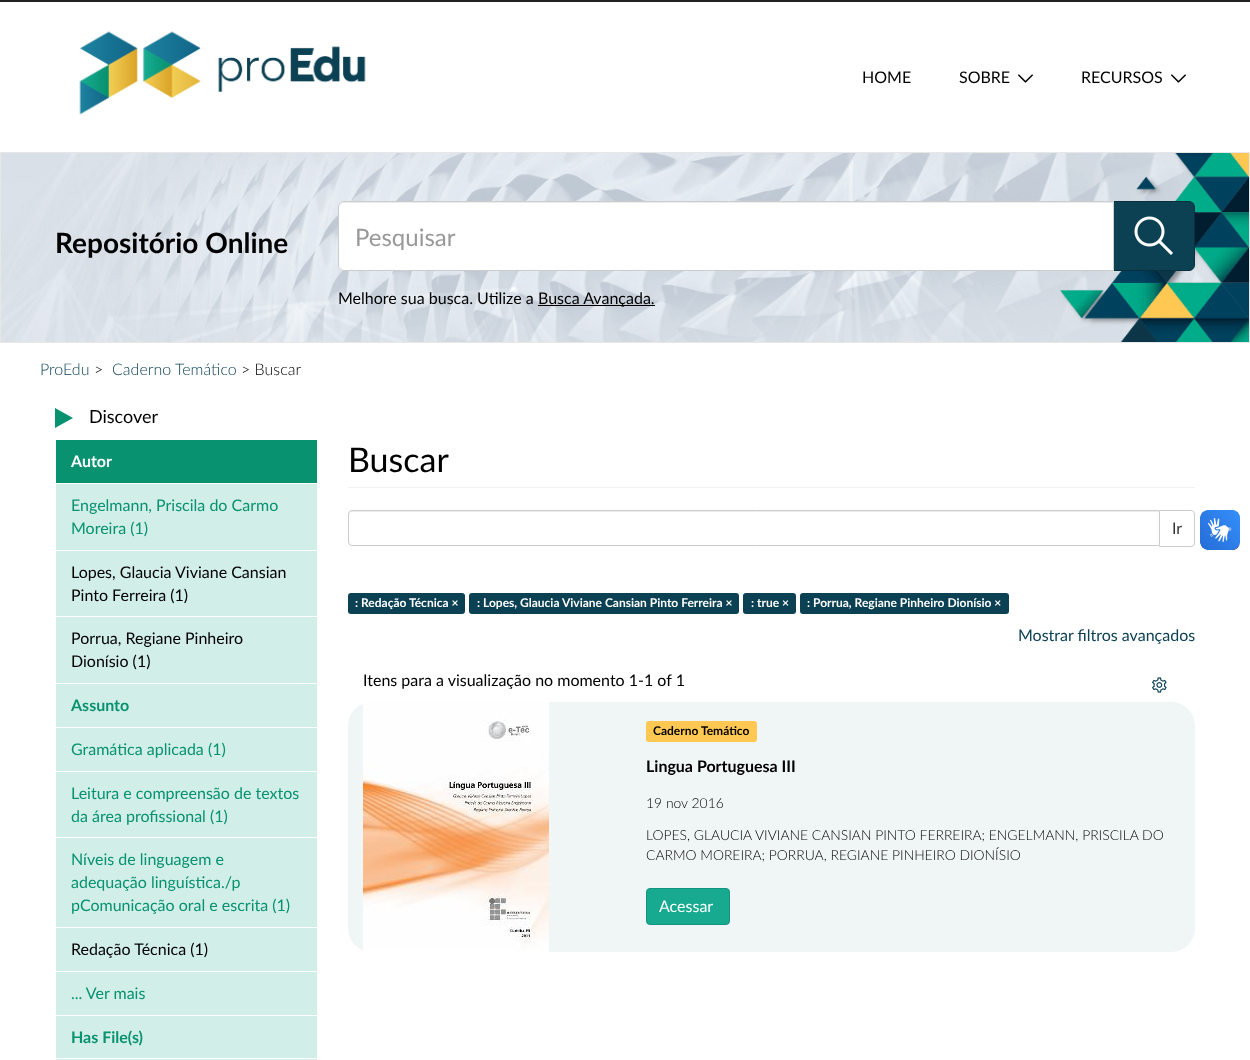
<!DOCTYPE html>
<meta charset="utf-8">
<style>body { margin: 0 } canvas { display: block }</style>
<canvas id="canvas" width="1250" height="1060"></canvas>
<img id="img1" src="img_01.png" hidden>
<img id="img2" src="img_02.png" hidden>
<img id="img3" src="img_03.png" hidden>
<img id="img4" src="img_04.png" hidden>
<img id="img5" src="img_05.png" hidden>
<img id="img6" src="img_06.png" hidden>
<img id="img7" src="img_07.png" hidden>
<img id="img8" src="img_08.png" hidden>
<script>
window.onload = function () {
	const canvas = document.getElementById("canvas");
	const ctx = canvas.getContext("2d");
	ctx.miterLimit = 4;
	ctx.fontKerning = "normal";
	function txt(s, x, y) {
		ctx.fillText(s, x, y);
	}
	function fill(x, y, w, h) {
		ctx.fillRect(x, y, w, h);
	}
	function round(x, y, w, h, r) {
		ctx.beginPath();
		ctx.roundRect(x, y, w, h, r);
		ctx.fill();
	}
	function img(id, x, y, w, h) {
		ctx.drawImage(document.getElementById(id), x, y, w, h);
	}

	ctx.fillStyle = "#FFFFFF";
	fill(0, 0, 1250, 1060);
	ctx.fillStyle = "#222222";
	fill(0, 0, 1250, 2);
	img("img1", 79, 31, 287, 84);
	img("img2", 1018, 74, 15, 9);
	img("img2", 1171, 74, 15, 9);
	ctx.strokeStyle = "#E7E7E7";
	ctx.strokeRect(0.5, 152.5, 1249, 190);
	img("img3", 1, 153, 1248, 189);
	ctx.fillStyle = "#0C4154";
	ctx.beginPath();
	ctx.roundRect(1113.5, 201.5, 81, 69, [0, 5.5, 5.5, 0]);
	ctx.fill();
	ctx.strokeStyle = "#09303E";
	ctx.stroke();
	ctx.fillStyle = "#FFFFFF";
	ctx.beginPath();
	ctx.roundRect(338, 201, 776, 70, [6, 0, 0, 6]);
	ctx.fill();
	ctx.fillStyle = "#ECECEC";
	ctx.beginPath();
	ctx.moveTo(344, 203);
	ctx.lineTo(1113, 203);
	ctx.lineTo(1113, 202);
	ctx.lineTo(344, 202);
	ctx.bezierCurveTo(341, 202, 339, 204, 339, 207);
	ctx.lineTo(339, 208);
	ctx.bezierCurveTo(339, 205, 341, 203, 344, 203);
	ctx.closePath();
	ctx.fill();
	ctx.beginPath();
	ctx.roundRect(338.5, 201.5, 775, 69, [5.5, 0, 0, 5.5]);
	ctx.strokeStyle = "#CCCCCC";
	ctx.stroke();
	img("img4", 1134, 216, 39, 39);
	ctx.fillStyle = "#000000";
	fill(538, 305, 117, 1);
	ctx.fillStyle = "#089270";
	ctx.beginPath();
	ctx.moveTo(55, 428);
	ctx.lineTo(55, 408);
	ctx.lineTo(73, 418);
	ctx.closePath();
	ctx.fill();
	fill(56, 440, 261, 43);
	ctx.fillStyle = "#D1EEE9";
	fill(56, 484, 261, 66);
	fill(56, 551, 261, 65);
	fill(56, 617, 261, 66);
	fill(56, 684, 261, 43);
	fill(56, 728, 261, 43);
	fill(56, 772, 261, 65);
	fill(56, 838, 261, 89);
	fill(56, 928, 261, 43);
	fill(56, 972, 261, 43);
	fill(56, 1016, 261, 42);
	ctx.beginPath();
	ctx.rect(55.5, 1058.5, 262, 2);
	ctx.fill();
	ctx.strokeStyle = "#FFFFFF";
	ctx.stroke();
	ctx.fillStyle = "#F1F1F1";
	fill(348, 487, 847, 1);
	ctx.beginPath();
	ctx.roundRect(1159.5, 510.5, 35, 36, [0, 3.5, 3.5, 0]);
	ctx.strokeStyle = "#CCCCCC";
	ctx.stroke();
	ctx.fillStyle = "#FFFFFF";
	ctx.beginPath();
	ctx.roundRect(348, 510, 812, 36, [4, 0, 0, 4]);
	ctx.fill();
	ctx.fillStyle = "#ECECEC";
	ctx.beginPath();
	ctx.moveTo(352, 512);
	ctx.lineTo(1159, 512);
	ctx.lineTo(1159, 511);
	ctx.lineTo(352, 511);
	ctx.bezierCurveTo(350, 511, 349, 513, 349, 515);
	ctx.bezierCurveTo(349, 513, 350, 512, 352, 512);
	ctx.closePath();
	ctx.fill();
	ctx.beginPath();
	ctx.roundRect(348.5, 510.5, 811, 35, [3.5, 0, 0, 3.5]);
	ctx.stroke();
	ctx.fillStyle = "#0C4154";
	round(348, 593, 117, 21, 3);
	round(469, 593, 270, 21, 3);
	round(743, 593, 53, 21, 3);
	round(800, 593, 209, 21, 3);
	img("img5", 1152, 677, 15, 16);
	ctx.fillStyle = "#F0F5F6";
	round(348, 702, 847, 250, 24);
	img("img6", 363, 702, 186, 250);
	ctx.fillStyle = "#FFC853";
	round(646, 721, 111, 21, 3);
	ctx.fillStyle = "#17AA90";
	ctx.beginPath();
	ctx.roundRect(646.5, 888.5, 83, 36, 3.5);
	ctx.fill();
	ctx.strokeStyle = "#14947D";
	ctx.stroke();
	img("img7", 1200, 510, 40, 40);
	img("img8", 1200, 510, 40, 40);
	ctx.font = "16px Lato";
	ctx.fillStyle = "#000000";
	txt("HOME", 862, 83);
	txt("SOBRE", 959, 83);
	txt("RECURSOS", 1081, 83);
	ctx.font = "bold 28px Lato";
	txt("Repositório Online", 55, 253);
	ctx.font = "24px Lato";
	ctx.fillStyle = "#999999";
	txt("Pesquisar", 355, 246);
	ctx.font = "16px Lato";
	ctx.fillStyle = "#000000";
	txt("Melhore sua busca. Utilize a", 338, 304);
	txt("Busca Avançada.", 538, 304);
	ctx.font = "300 16px Lato";
	ctx.fillStyle = "#0C4154";
	txt("ProEdu", 40, 375);
	ctx.fillStyle = "#000000";
	txt(">", 94, 375);
	ctx.fillStyle = "#0C4154";
	txt("Caderno Temático", 112, 375);
	ctx.fillStyle = "#000000";
	txt("> Buscar", 241, 375);
	ctx.font = "18px Lato";
	txt("Discover", 89, 423);
	ctx.font = "bold 16px Lato";
	ctx.fillStyle = "#FFFFFF";
	txt("Autor", 71, 467);
	ctx.font = "16px Lato";
	ctx.fillStyle = "#089270";
	txt("Engelmann, Priscila do Carmo", 71, 511);
	txt("Moreira (1)", 71, 534);
	ctx.fillStyle = "#000000";
	txt("Lopes, Glaucia Viviane Cansian", 71, 578);
	txt("Pinto Ferreira (1)", 71, 601);
	txt("Porrua, Regiane Pinheiro", 71, 644);
	txt("Dionísio (1)", 71, 667);
	ctx.font = "bold 16px Lato";
	ctx.fillStyle = "#089270";
	txt("Assunto", 71, 711);
	ctx.font = "16px Lato";
	txt("Gramática aplicada (1)", 71, 755);
	txt("Leitura e compreensão de textos", 71, 799);
	txt("da área profissional (1)", 71, 822);
	txt("Níveis de linguagem e", 71, 865);
	txt("adequação linguística./p", 71, 888);
	txt("pComunicação oral e escrita (1)", 71, 911);
	ctx.fillStyle = "#000000";
	txt("Redação Técnica (1)", 71, 955);
	ctx.fillStyle = "#089270";
	txt("... Ver mais", 71, 999);
	ctx.font = "bold 16px Lato";
	txt("Has File(s)", 71, 1043);
	ctx.font = "34px Lato";
	ctx.fillStyle = "#000000";
	txt("Buscar", 348, 472);
	ctx.font = "16px Lato";
	ctx.fillStyle = "#333333";
	txt("Ir", 1172, 534);
	ctx.font = "bold 12px Lato";
	ctx.fillStyle = "#FFFFFF";
	txt(": Redação Técnica ×", 355, 607);
	txt(": Lopes, Glaucia Viviane Cansian Pinto Ferreira ×", 477, 607);
	txt(": true ×", 751, 607);
	txt(": Porrua, Regiane Pinheiro Dionísio ×", 807, 607);
	ctx.font = "16px Lato";
	ctx.fillStyle = "#0C4154";
	txt("Mostrar filtros avançados", 1018, 641);
	ctx.fillStyle = "#000000";
	txt("Itens para a visualização no momento 1-1 of 1", 363, 686);
	ctx.font = "bold 12px Lato";
	txt("Caderno Temático", 653, 735);
	ctx.font = "bold 16px Lato";
	txt("Lingua Portuguesa III", 646, 772);
	ctx.font = "300 13.9px Lato";
	txt("19 nov 2016", 646, 808);
	txt("LOPES, GLAUCIA VIVIANE CANSIAN PINTO FERREIRA; ENGELMANN, PRISCILA DO", 646, 840);
	txt("CARMO MOREIRA; PORRUA, REGIANE PINHEIRO DIONÍSIO", 646, 860);
	ctx.font = "16px Lato";
	ctx.fillStyle = "#FFFFFF";
	txt("Acessar", 659, 912);
};
</script>
